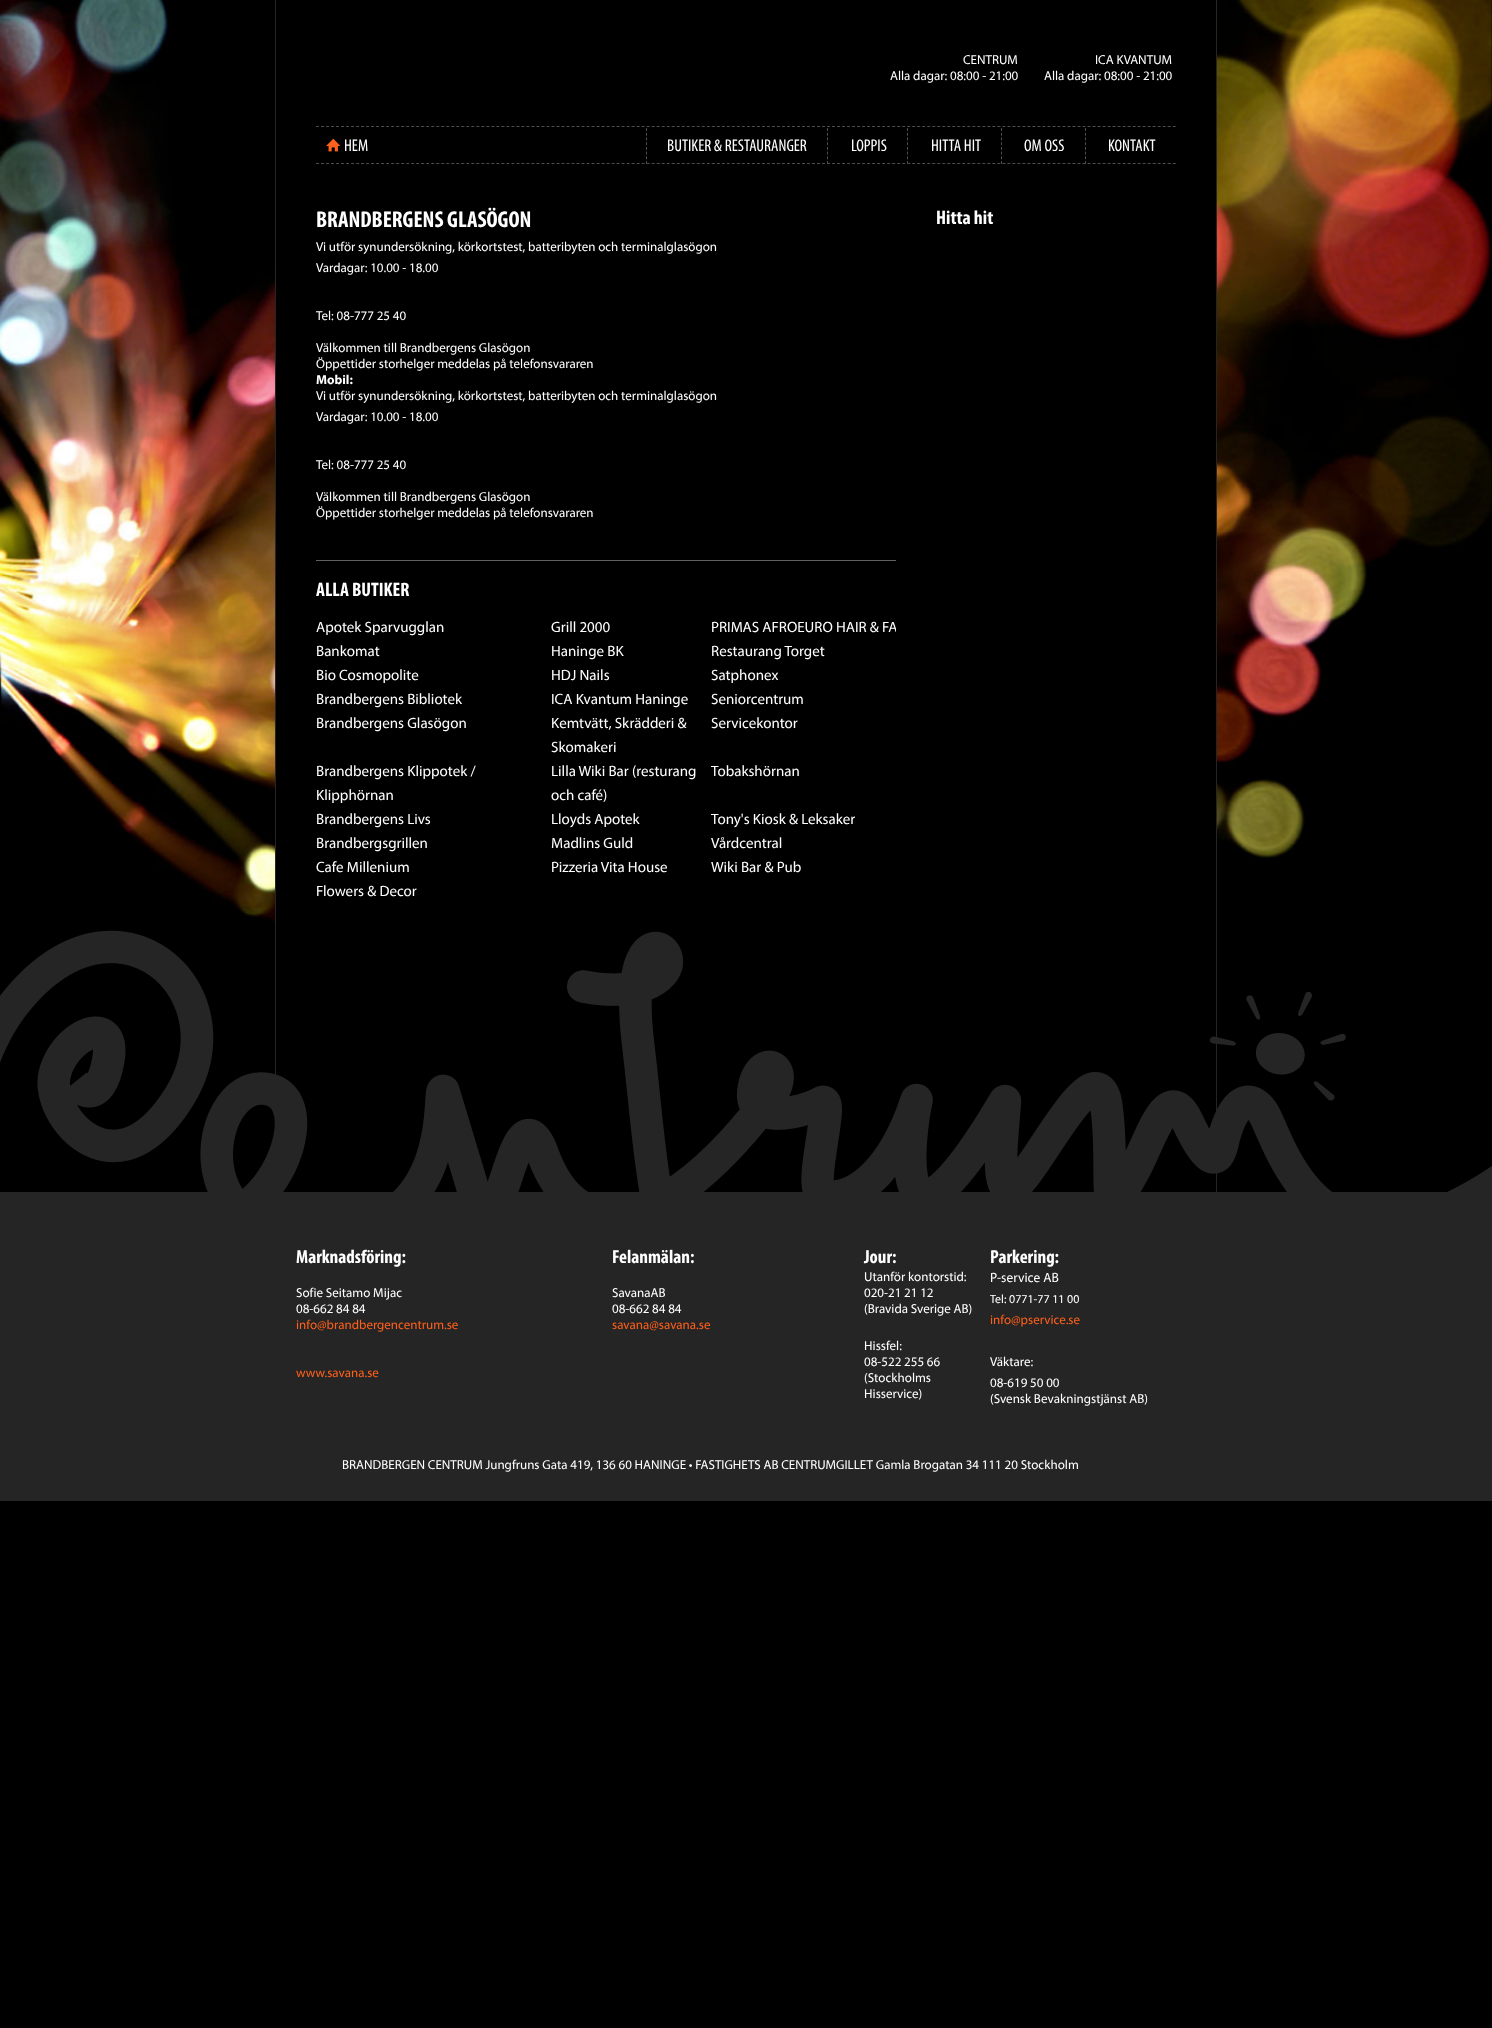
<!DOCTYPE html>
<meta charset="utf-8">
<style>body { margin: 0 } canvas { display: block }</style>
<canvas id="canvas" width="1492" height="2028"></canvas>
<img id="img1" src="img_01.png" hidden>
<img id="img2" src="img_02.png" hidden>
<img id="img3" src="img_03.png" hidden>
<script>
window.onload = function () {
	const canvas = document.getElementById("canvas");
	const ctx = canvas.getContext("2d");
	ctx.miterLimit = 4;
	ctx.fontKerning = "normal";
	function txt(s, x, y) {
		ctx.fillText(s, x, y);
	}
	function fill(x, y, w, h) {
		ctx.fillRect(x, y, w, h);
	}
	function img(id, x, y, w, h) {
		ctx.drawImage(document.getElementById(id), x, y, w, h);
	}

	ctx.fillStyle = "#000000";
	fill(0, 0, 1492, 2028);
	img("img1", 0, 0, 1492, 958);
	fill(363, 0, 853, 194);
	ctx.fillStyle = "#252525";
	fill(1216, 0, 1, 1193);
	fill(275, 0, 1, 1075);
	ctx.beginPath();
	ctx.moveTo(316, 126.5);
	ctx.lineTo(1176, 126.5);
	ctx.strokeStyle = "#4D4D4D";
	ctx.setLineDash([3, 2.01]);
	ctx.stroke();
	ctx.beginPath();
	ctx.moveTo(316, 163.5);
	ctx.lineTo(1176, 163.5);
	ctx.stroke();
	img("img2", 326, 138, 15, 14);
	ctx.beginPath();
	ctx.moveTo(827.5, 128);
	ctx.lineTo(827.5, 164);
	ctx.setLineDash([3, 1.71]);
	ctx.stroke();
	ctx.beginPath();
	ctx.moveTo(646.5, 128);
	ctx.lineTo(646.5, 164);
	ctx.stroke();
	ctx.beginPath();
	ctx.moveTo(907.5, 128);
	ctx.lineTo(907.5, 164);
	ctx.stroke();
	ctx.beginPath();
	ctx.moveTo(1001.5, 128);
	ctx.lineTo(1001.5, 164);
	ctx.stroke();
	ctx.beginPath();
	ctx.moveTo(1085.5, 128);
	ctx.lineTo(1085.5, 164);
	ctx.stroke();
	ctx.fillStyle = "#000000";
	fill(276, 194, 940, 764);
	ctx.fillStyle = "#616161";
	fill(316, 560, 580, 1);
	img("img3", 0, 930, 1492, 262);
	ctx.fillStyle = "#252525";
	fill(0, 1192, 1492, 309);
	ctx.font = "13px Myriad";
	ctx.fillStyle = "#FFFFFF";
	txt("CENTRUM", 963, 64);
	txt("Alla dagar: 08:00 - 21:00", 890, 80);
	txt("ICA KVANTUM", 1095, 64);
	txt("Alla dagar: 08:00 - 21:00", 1044, 80);
	ctx.font = "17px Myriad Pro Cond";
	txt("HEM", 344, 151);
	txt("BUTIKER & RESTAURANGER", 667, 151);
	txt("LOPPIS", 851, 151);
	txt("HITTA HIT", 931, 151);
	txt("OM OSS", 1024, 151);
	txt("KONTAKT", 1108, 151);
	ctx.font = "bold 23px Myriad Pro Cond";
	txt("BRANDBERGENS GLASÖGON", 316, 227);
	ctx.font = "13px Myriad";
	txt("Vi utför synundersökning, körkortstest, batteribyten och terminalglasögon", 316, 251);
	txt("Vardagar: 10.00 - 18.00", 316, 272);
	txt("Tel: 08-777 25 40", 316, 320);
	txt("Välkommen till Brandbergens Glasögon", 316, 352);
	txt("Öppettider storhelger meddelas på telefonsvararen", 316, 368);
	ctx.font = "bold 13px Myriad";
	txt("Mobil:", 316, 384);
	ctx.font = "13px Myriad";
	txt("Vi utför synundersökning, körkortstest, batteribyten och terminalglasögon", 316, 400);
	txt("Vardagar: 10.00 - 18.00", 316, 421);
	txt("Tel: 08-777 25 40", 316, 469);
	txt("Välkommen till Brandbergens Glasögon", 316, 501);
	txt("Öppettider storhelger meddelas på telefonsvararen", 316, 517);
	ctx.font = "bold 19.5px Myriad Pro Cond";
	txt("ALLA BUTIKER", 316, 596);
	ctx.font = "15px Myriad";
	txt("Apotek Sparvugglan", 316, 632);
	txt("Grill 2000", 551, 632);
	ctx.save();
	ctx.beginPath();
	ctx.rect(316, 561, 580, 342);
	ctx.clip();
	txt("PRIMAS AFROEURO HAIR & FA", 711, 632);
	ctx.restore();
	txt("Bankomat", 316, 656);
	txt("Haninge BK", 551, 656);
	txt("Restaurang Torget", 711, 656);
	txt("Bio Cosmopolite", 316, 680);
	txt("HDJ Nails", 551, 680);
	txt("Satphonex", 711, 680);
	txt("Brandbergens Bibliotek", 316, 704);
	txt("ICA Kvantum Haninge", 551, 704);
	txt("Seniorcentrum", 711, 704);
	txt("Brandbergens Glasögon", 316, 728);
	txt("Kemtvätt, Skrädderi &", 551, 728);
	txt("Skomakeri", 551, 752);
	txt("Servicekontor", 711, 728);
	txt("Brandbergens Klippotek /", 316, 776);
	txt("Klipphörnan", 316, 800);
	txt("Lilla Wiki Bar (resturang", 551, 776);
	txt("och café)", 551, 800);
	txt("Tobakshörnan", 711, 776);
	txt("Brandbergens Livs", 316, 824);
	txt("Lloyds Apotek", 551, 824);
	txt("Tony's Kiosk & Leksaker", 711, 824);
	txt("Brandbergsgrillen", 316, 848);
	txt("Madlins Guld", 551, 848);
	txt("Vårdcentral", 711, 848);
	txt("Cafe Millenium", 316, 872);
	txt("Pizzeria Vita House", 551, 872);
	txt("Wiki Bar & Pub", 711, 872);
	txt("Flowers & Decor", 316, 896);
	ctx.font = "bold 19.5px Myriad Pro Cond";
	txt("Hitta hit", 936, 224);
	ctx.font = "bold 19px Myriad Pro Cond";
	txt("Marknadsföring:", 296, 1263);
	ctx.font = "13px Myriad";
	txt("Sofie Seitamo Mijac", 296, 1297);
	txt("08-662 84 84", 296, 1313);
	ctx.fillStyle = "#FF601B";
	txt("info@brandbergencentrum.se", 296, 1329);
	txt("www.savana.se", 296, 1377);
	ctx.font = "bold 19px Myriad Pro Cond";
	ctx.fillStyle = "#FFFFFF";
	txt("Felanmälan:", 612, 1263);
	ctx.font = "13px Myriad";
	txt("SavanaAB", 612, 1297);
	txt("08-662 84 84", 612, 1313);
	ctx.fillStyle = "#FF601B";
	txt("savana@savana.se", 612, 1329);
	ctx.font = "bold 19px Myriad Pro Cond";
	ctx.fillStyle = "#FFFFFF";
	txt("Jour:", 864, 1263);
	ctx.font = "13px Myriad";
	txt("Utanför kontorstid:", 864, 1281);
	txt("020-21 21 12", 864, 1297);
	txt("(Bravida Sverige AB)", 864, 1313);
	txt("Hissfel:", 864, 1350);
	txt("08-522 255 66", 864, 1366);
	txt("(Stockholms", 864, 1382);
	txt("Hisservice)", 864, 1398);
	ctx.font = "bold 19px Myriad Pro Cond";
	txt("Parkering:", 990, 1263);
	ctx.font = "13.5px Myriad";
	txt("P-service AB", 990, 1282);
	ctx.font = "12px Myriad";
	txt("Tel: 0771-77 11 00", 990, 1303);
	ctx.font = "13px Myriad";
	ctx.fillStyle = "#FF601B";
	txt("info@pservice.se", 990, 1324);
	ctx.fillStyle = "#FFFFFF";
	txt("Väktare:", 990, 1366);
	txt("08-619 50 00", 990, 1387);
	txt("(Svensk Bevakningstjänst AB)", 990, 1403);
	txt("BRANDBERGEN CENTRUM Jungfruns Gata 419, 136 60 HANINGE • FASTIGHETS AB CENTRUMGILLET Gamla Brogatan 34 111 20 Stockholm", 342, 1469);
};
</script>
